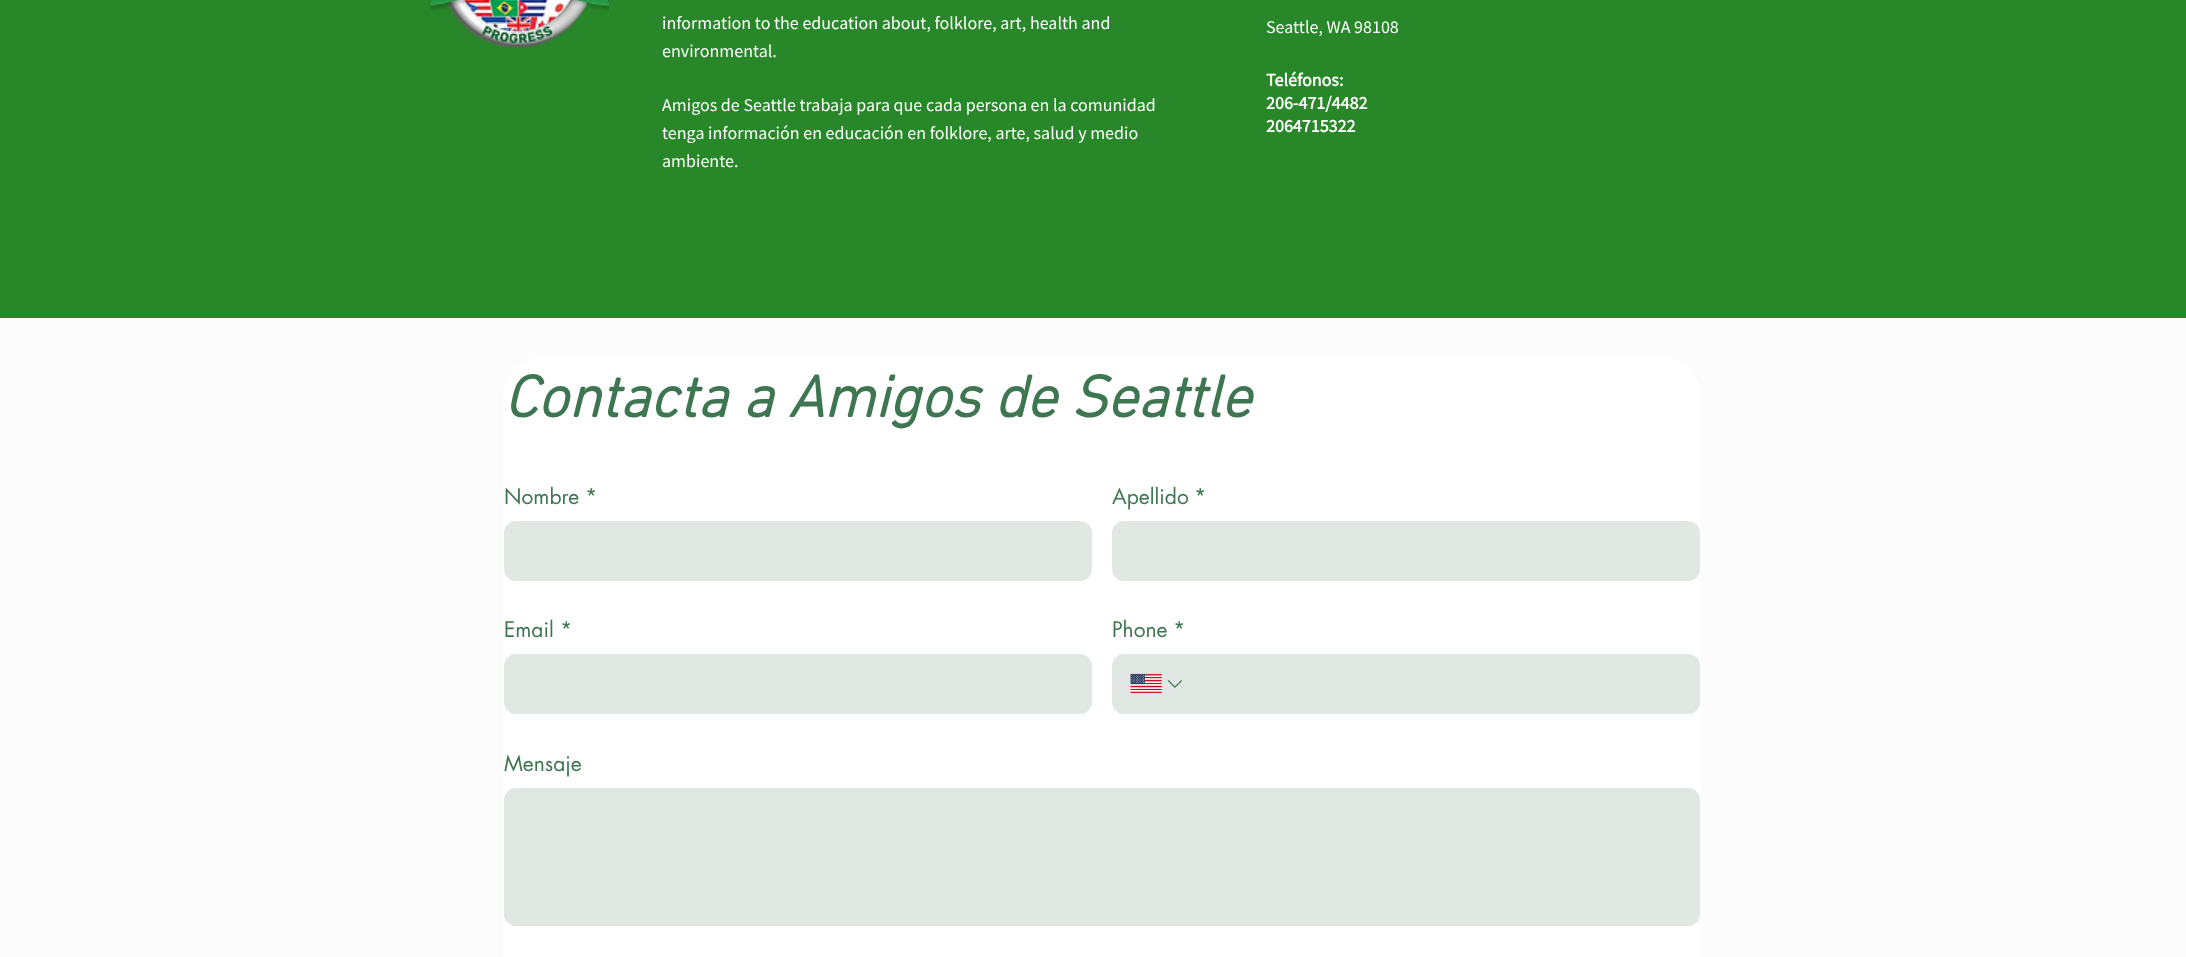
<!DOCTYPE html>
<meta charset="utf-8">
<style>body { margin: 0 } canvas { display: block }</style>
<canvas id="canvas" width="2186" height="957"></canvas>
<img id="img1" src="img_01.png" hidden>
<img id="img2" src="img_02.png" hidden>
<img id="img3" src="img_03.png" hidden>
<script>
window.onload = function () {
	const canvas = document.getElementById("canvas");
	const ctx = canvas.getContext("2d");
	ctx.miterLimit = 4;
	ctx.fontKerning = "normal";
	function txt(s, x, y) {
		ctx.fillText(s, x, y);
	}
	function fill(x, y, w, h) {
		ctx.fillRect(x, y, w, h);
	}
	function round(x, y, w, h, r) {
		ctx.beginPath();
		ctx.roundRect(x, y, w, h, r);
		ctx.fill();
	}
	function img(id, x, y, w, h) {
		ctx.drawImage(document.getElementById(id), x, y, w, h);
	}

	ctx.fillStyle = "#288728";
	fill(0, 0, 2186, 957);
	img("img1", 430, 0, 179, 48);
	ctx.fillStyle = "#FCFCFC";
	fill(0, 318, 2186, 639);
	ctx.fillStyle = "#FFFFFF";
	round(503, 356, 1198, 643, 42);
	ctx.fillStyle = "#E1E7E3";
	round(504, 521, 588, 60, 12);
	round(1112, 521, 588, 60, 12);
	round(504, 654, 588, 60, 12);
	round(1112, 654, 588, 60, 12);
	img("img2", 1130, 673, 32, 21);
	img("img3", 1167, 680, 15, 8);
	round(504, 788, 1196, 138, 12);
	ctx.font = "18px Source Sans Pro";
	ctx.fillStyle = "#FFFFFF";
	txt("information to the education about, folklore, art, health and", 662, 29);
	txt("environmental.", 662, 57);
	txt("Amigos de Seattle trabaja para que cada persona en la comunidad", 662, 111);
	txt("tenga información en educación en folklore, arte, salud y medio", 662, 139);
	txt("ambiente.", 662, 167);
	txt("Seattle, WA 98108", 1266, 33);
	ctx.font = "bold 18px Source Sans Pro";
	txt("Teléfonos:", 1266, 86);
	txt("206-471/4482", 1266, 109);
	txt("2064715322", 1266, 132);
	ctx.font = "italic bold 60px 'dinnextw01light'";
	ctx.fillStyle = "#3F7652";
	txt("Contacta a Amigos de Seattle", 504, 417);
	ctx.font = "21px futura";
	txt("Nombre", 504, 504);
	txt("*", 585, 504);
	txt("Apellido", 1112, 504);
	txt("*", 1194, 504);
	txt("Email", 504, 637);
	txt("*", 560, 637);
	txt("Phone", 1112, 637);
	txt("*", 1173, 637);
	txt("Mensaje", 504, 771);
};
</script>
